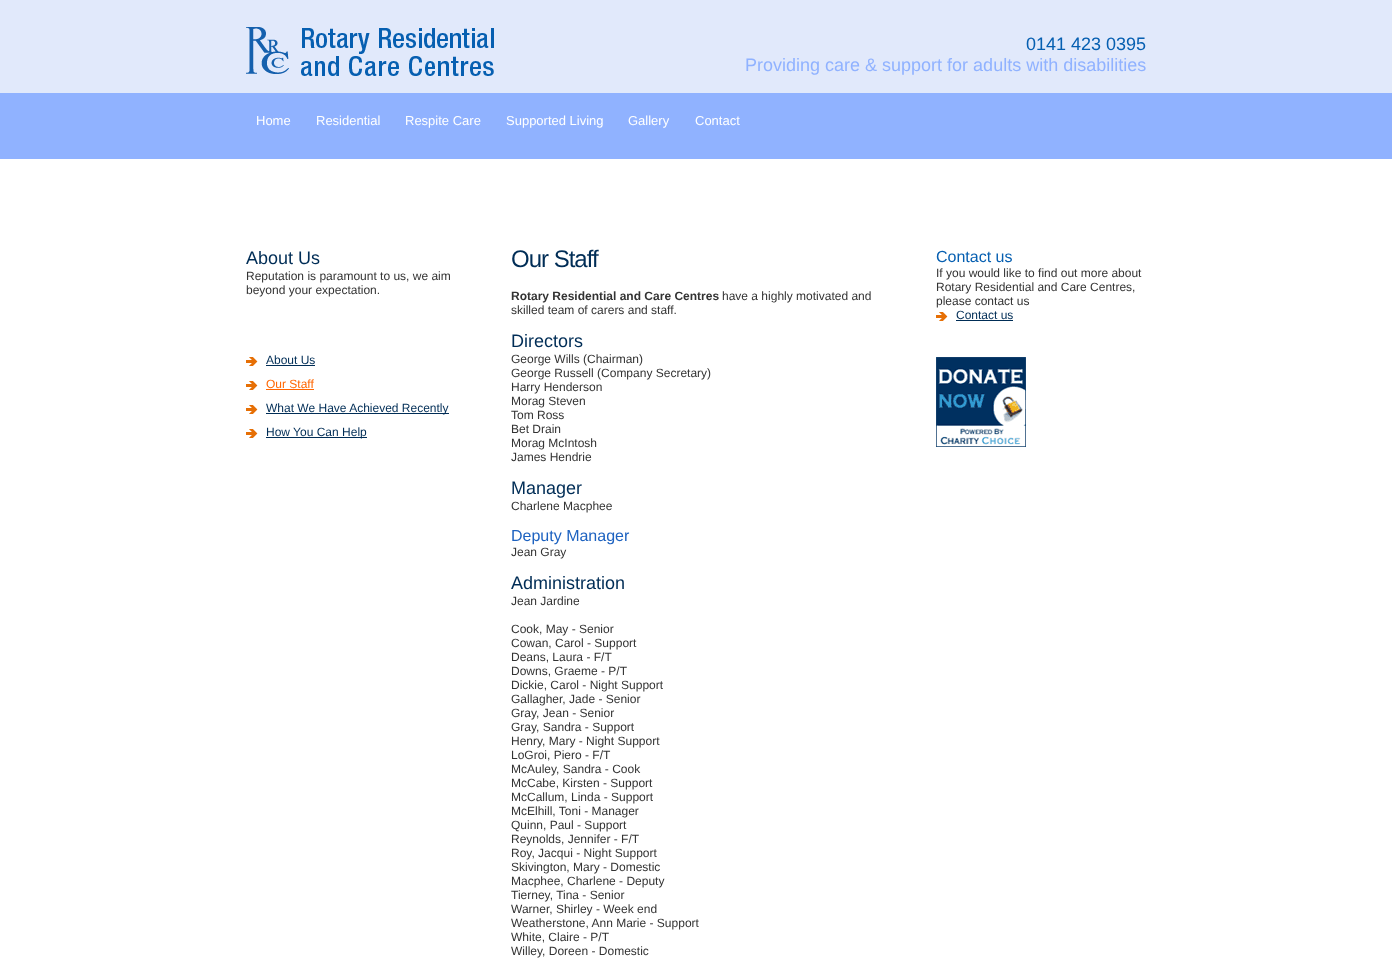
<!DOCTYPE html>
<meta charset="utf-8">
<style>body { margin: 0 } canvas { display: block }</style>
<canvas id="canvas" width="1392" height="973"></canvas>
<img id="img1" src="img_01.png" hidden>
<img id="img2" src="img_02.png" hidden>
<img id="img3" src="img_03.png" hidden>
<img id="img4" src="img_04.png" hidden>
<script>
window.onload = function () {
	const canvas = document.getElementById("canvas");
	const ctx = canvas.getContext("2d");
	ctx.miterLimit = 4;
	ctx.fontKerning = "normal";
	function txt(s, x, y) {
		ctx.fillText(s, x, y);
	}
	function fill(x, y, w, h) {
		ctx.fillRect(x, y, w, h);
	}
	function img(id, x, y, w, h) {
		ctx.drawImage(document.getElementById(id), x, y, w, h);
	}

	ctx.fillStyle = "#FFFFFF";
	fill(0, 0, 1392, 973);
	img("img1", 0, 0, 1392, 159);
	img("img2", 246, 27, 248, 49);
	img("img3", 246, 357, 12, 9);
	ctx.fillStyle = "#002D56";
	fill(266, 365, 49, 1);
	img("img3", 246, 381, 12, 9);
	ctx.fillStyle = "#FF6600";
	fill(266, 389, 48, 1);
	img("img3", 246, 405, 12, 9);
	ctx.fillStyle = "#002D56";
	fill(266, 413, 183, 1);
	img("img3", 246, 429, 12, 9);
	fill(266, 437, 101, 1);
	img("img3", 936, 312, 12, 9);
	fill(956, 320, 57, 1);
	img("img4", 936, 357, 90, 90);
	ctx.font = "18px Liberation Sans";
	ctx.fillStyle = "#065FB1";
	txt("0141 423 0395", 1026, 50);
	ctx.fillStyle = "#90B2FF";
	txt("Providing care & support for adults with disabilities", 745, 71);
	ctx.font = "13px Liberation Sans";
	ctx.fillStyle = "#FFFFFF";
	txt("Home", 256, 125);
	txt("Residential", 316, 125);
	txt("Respite Care", 405, 125);
	txt("Supported Living", 506, 125);
	txt("Gallery", 628, 125);
	txt("Contact", 695, 125);
	ctx.font = "18px Liberation Sans";
	ctx.fillStyle = "#002D56";
	txt("About Us", 246, 264);
	ctx.font = "12px Liberation Sans";
	ctx.fillStyle = "#333333";
	txt("Reputation is paramount to us, we aim", 246, 280);
	txt("beyond your expectation.", 246, 294);
	ctx.fillStyle = "#002D56";
	txt("About Us", 266, 364);
	ctx.fillStyle = "#FF6600";
	txt("Our Staff", 266, 388);
	ctx.fillStyle = "#002D56";
	txt("What We Have Achieved Recently", 266, 412);
	txt("How You Can Help", 266, 436);
	ctx.letterSpacing = "-1px";
	ctx.font = "24px Liberation Sans";
	txt("Our Staff", 511, 267);
	ctx.letterSpacing = "0px";
	ctx.font = "bold 12px Liberation Sans";
	ctx.fillStyle = "#333333";
	txt("Rotary Residential and Care Centres", 511, 300);
	ctx.font = "12px Liberation Sans";
	txt("have a highly motivated and", 722, 300);
	txt("skilled team of carers and staff.", 511, 314);
	ctx.font = "18px Liberation Sans";
	ctx.fillStyle = "#002D56";
	txt("Directors", 511, 347);
	ctx.font = "12px Liberation Sans";
	ctx.fillStyle = "#333333";
	txt("George Wills (Chairman)", 511, 363);
	txt("George Russell (Company Secretary)", 511, 377);
	txt("Harry Henderson", 511, 391);
	txt("Morag Steven", 511, 405);
	txt("Tom Ross", 511, 419);
	txt("Bet Drain", 511, 433);
	txt("Morag McIntosh", 511, 447);
	txt("James Hendrie", 511, 461);
	ctx.font = "18px Liberation Sans";
	ctx.fillStyle = "#002D56";
	txt("Manager", 511, 494);
	ctx.font = "12px Liberation Sans";
	ctx.fillStyle = "#333333";
	txt("Charlene Macphee", 511, 510);
	ctx.font = "16px Liberation Sans";
	ctx.fillStyle = "#1D62C0";
	txt("Deputy Manager", 511, 541);
	ctx.font = "12px Liberation Sans";
	ctx.fillStyle = "#333333";
	txt("Jean Gray", 511, 556);
	ctx.font = "18px Liberation Sans";
	ctx.fillStyle = "#002D56";
	txt("Administration", 511, 589);
	ctx.font = "12px Liberation Sans";
	ctx.fillStyle = "#333333";
	txt("Jean Jardine", 511, 605);
	txt("Cook, May - Senior", 511, 633);
	txt("Cowan, Carol - Support", 511, 647);
	txt("Deans, Laura - F/T", 511, 661);
	txt("Downs, Graeme - P/T", 511, 675);
	txt("Dickie, Carol - Night Support", 511, 689);
	txt("Gallagher, Jade - Senior", 511, 703);
	txt("Gray, Jean - Senior", 511, 717);
	txt("Gray, Sandra - Support", 511, 731);
	txt("Henry, Mary - Night Support", 511, 745);
	txt("LoGroi, Piero - F/T", 511, 759);
	txt("McAuley, Sandra - Cook", 511, 773);
	txt("McCabe, Kirsten - Support", 511, 787);
	txt("McCallum, Linda - Support", 511, 801);
	txt("McElhill, Toni - Manager", 511, 815);
	txt("Quinn, Paul - Support", 511, 829);
	txt("Reynolds, Jennifer - F/T", 511, 843);
	txt("Roy, Jacqui - Night Support", 511, 857);
	txt("Skivington, Mary - Domestic", 511, 871);
	txt("Macphee, Charlene - Deputy", 511, 885);
	txt("Tierney, Tina - Senior", 511, 899);
	txt("Warner, Shirley - Week end", 511, 913);
	txt("Weatherstone, Ann Marie - Support", 511, 927);
	txt("White, Claire - P/T", 511, 941);
	txt("Willey, Doreen - Domestic", 511, 955);
	ctx.font = "16px Liberation Sans";
	ctx.fillStyle = "#065FB1";
	txt("Contact us", 936, 262);
	ctx.font = "12px Liberation Sans";
	ctx.fillStyle = "#333333";
	txt("If you would like to find out more about", 936, 277);
	txt("Rotary Residential and Care Centres,", 936, 291);
	txt("please contact us", 936, 305);
	ctx.fillStyle = "#002D56";
	txt("Contact us", 956, 319);
};
</script>
